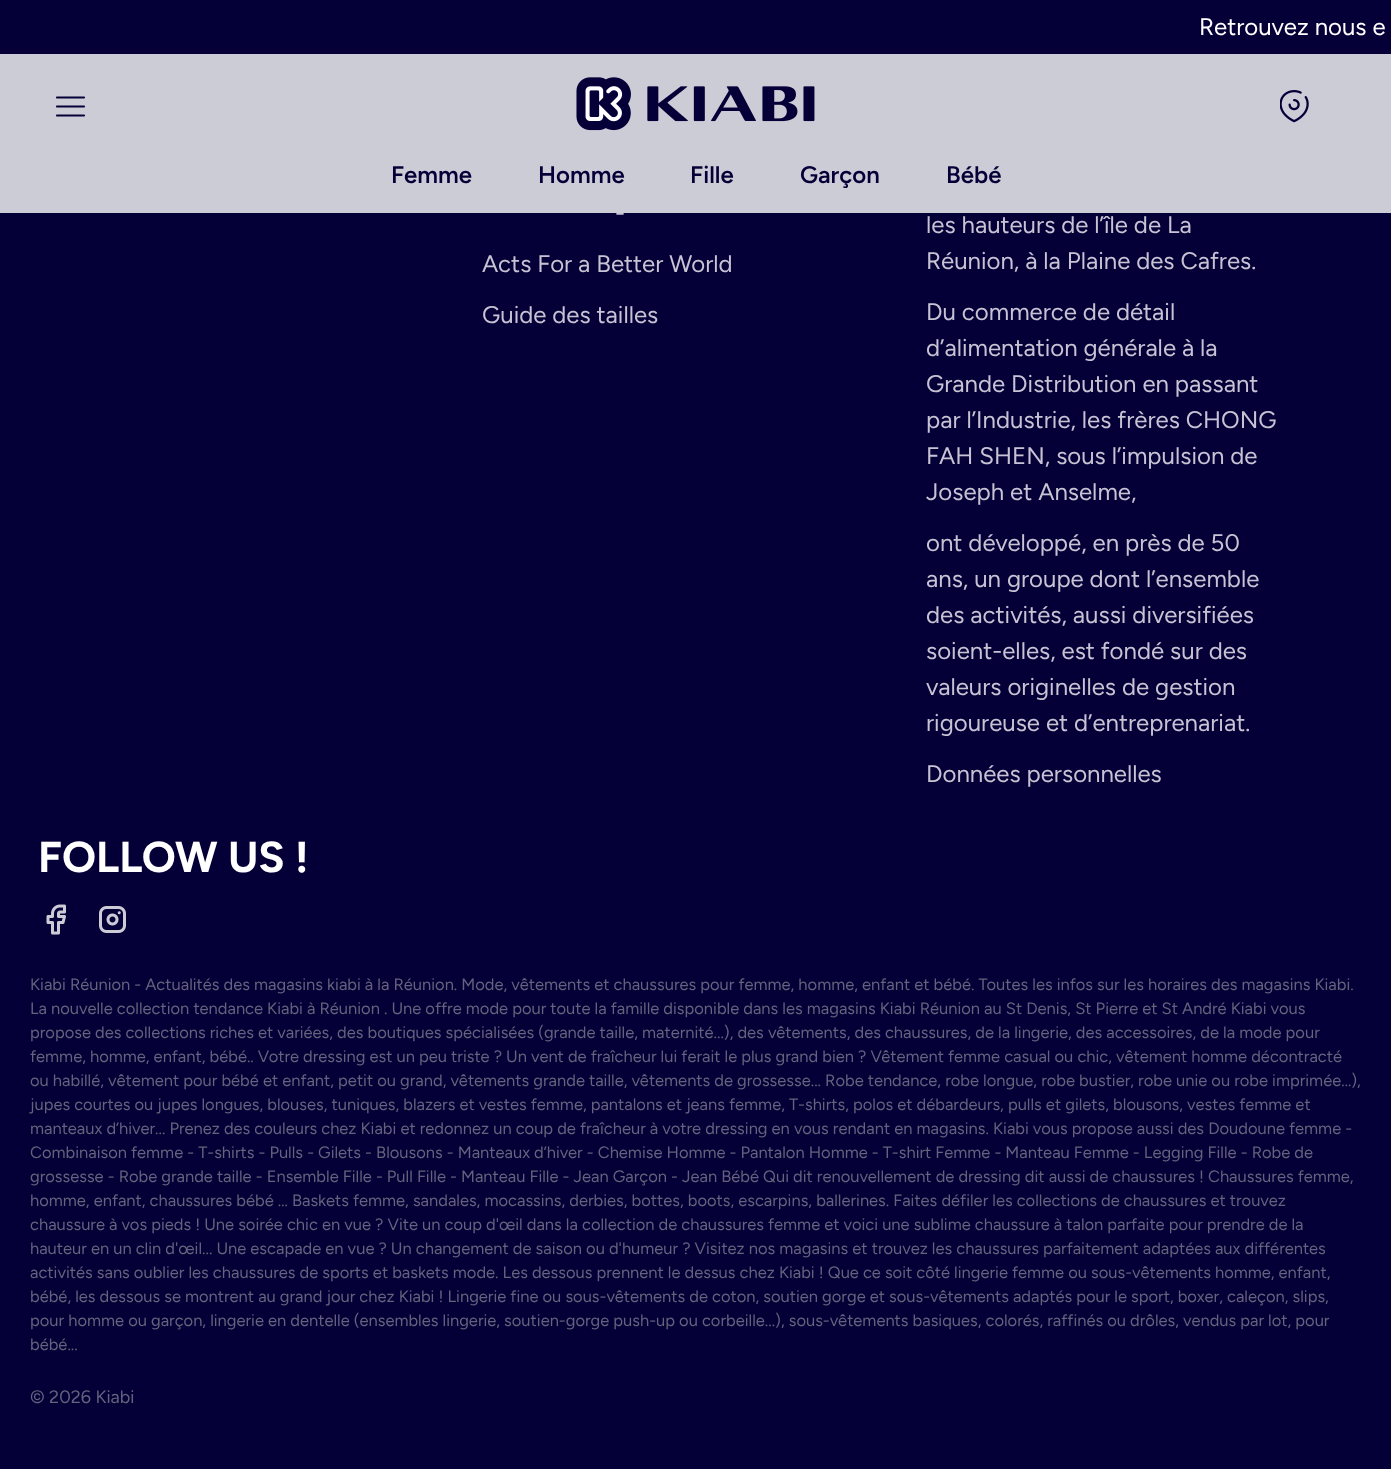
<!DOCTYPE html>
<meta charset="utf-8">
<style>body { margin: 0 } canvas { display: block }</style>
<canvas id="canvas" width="1391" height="1469"></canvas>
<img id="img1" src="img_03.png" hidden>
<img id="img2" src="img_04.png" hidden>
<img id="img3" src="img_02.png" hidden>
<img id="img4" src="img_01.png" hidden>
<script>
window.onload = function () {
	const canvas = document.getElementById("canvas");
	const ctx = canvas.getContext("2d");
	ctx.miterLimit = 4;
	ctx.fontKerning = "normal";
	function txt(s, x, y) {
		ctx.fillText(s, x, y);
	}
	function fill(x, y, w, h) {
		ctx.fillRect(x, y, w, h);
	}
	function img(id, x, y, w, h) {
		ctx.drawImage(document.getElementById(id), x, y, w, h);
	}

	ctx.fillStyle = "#040037";
	fill(0, 0, 1391, 1469);
	img("img1", 46, 904, 20, 31);
	img("img2", 99, 906, 27, 27);
	ctx.font = "24px Figtree";
	ctx.fillStyle = "#FFFFFF";
	txt("Retrouvez nous e", 1199, 35);
	ctx.fillStyle = "#C7C3D4";
	txt("-", 615, 221);
	ctx.fillStyle = "rgba(255, 255, 255, 0.8)";
	fill(0, 54, 1391, 159);
	ctx.font = "600 24px Figtree";
	ctx.fillStyle = "#040037";
	txt("Bébé", 946, 183);
	txt("Garçon", 800, 183);
	txt("Fille", 690, 183);
	txt("Homme", 538, 183);
	txt("Femme", 391, 183);
	img("img3", 1280, 90, 29, 33);
	img("img4", 576, 77, 239, 54);
	ctx.beginPath();
	ctx.moveTo(57, 97.5);
	ctx.lineTo(84, 97.5);
	ctx.moveTo(57, 106.5);
	ctx.lineTo(84, 106.5);
	ctx.moveTo(57, 115.5);
	ctx.lineTo(84, 115.5);
	ctx.strokeStyle = "#040037";
	ctx.lineWidth = 2.2;
	ctx.lineCap = "round";
	ctx.stroke();
	ctx.font = "24px Figtree";
	ctx.fillStyle = "#C7C3D4";
	txt("Acts For a Better World", 482, 272);
	txt("Guide des tailles", 482, 323);
	txt("les hauteurs de l’île de La", 926, 233);
	txt("Réunion, à la Plaine des Cafres.", 926, 269);
	txt("Du commerce de détail", 926, 320);
	txt("d’alimentation générale à la", 926, 356);
	txt("Grande Distribution en passant", 926, 392);
	txt("par l’Industrie, les frères CHONG", 926, 428);
	txt("FAH SHEN, sous l’impulsion de", 926, 464);
	txt("Joseph et Anselme,", 926, 500);
	txt("ont développé, en près de 50", 926, 551);
	txt("ans, un groupe dont l’ensemble", 926, 587);
	txt("des activités, aussi diversifiées", 926, 623);
	txt("soient-elles, est fondé sur des", 926, 659);
	txt("valeurs originelles de gestion", 926, 695);
	txt("rigoureuse et d’entreprenariat.", 926, 731);
	txt("Données personnelles", 926, 782);
	ctx.font = "bold 43.25px Figtree";
	ctx.fillStyle = "#FFFFFF";
	txt("FOLLOW US !", 38, 872);
	ctx.font = "16.5px Figtree";
	ctx.fillStyle = "#64627C";
	txt("Kiabi Réunion - Actualités des magasins kiabi à la Réunion. Mode, vêtements et chaussures pour femme, homme, enfant et bébé. Toutes les infos sur les horaires des magasins Kiabi.", 30, 990);
	txt("La nouvelle collection tendance Kiabi à Réunion . Une offre mode pour toute la famille disponible dans les magasins Kiabi Réunion au St Denis, St Pierre et St André Kiabi vous", 30, 1014);
	txt("propose des collections riches et variées, des boutiques spécialisées (grande taille, maternité...), des vêtements, des chaussures, de la lingerie, des accessoires, de la mode pour", 30, 1038);
	txt("femme, homme, enfant, bébé.. Votre dressing est un peu triste ? Un vent de fraîcheur lui ferait le plus grand bien ? Vêtement femme casual ou chic, vêtement homme décontracté", 30, 1062);
	txt("ou habillé, vêtement pour bébé et enfant, petit ou grand, vêtements grande taille, vêtements de grossesse... Robe tendance, robe longue, robe bustier, robe unie ou robe imprimée…),", 30, 1086);
	txt("jupes courtes ou jupes longues, blouses, tuniques, blazers et vestes femme, pantalons et jeans femme, T-shirts, polos et débardeurs, pulls et gilets, blousons, vestes femme et", 30, 1110);
	txt("manteaux d’hiver... Prenez des couleurs chez Kiabi et redonnez un coup de fraîcheur à votre dressing en vous rendant en magasins. Kiabi vous propose aussi des Doudoune femme -", 30, 1134);
	txt("Combinaison femme - T-shirts - Pulls - Gilets - Blousons - Manteaux d’hiver - Chemise Homme - Pantalon Homme - T-shirt Femme - Manteau Femme - Legging Fille - Robe de", 30, 1158);
	txt("grossesse - Robe grande taille - Ensemble Fille - Pull Fille - Manteau Fille - Jean Garçon - Jean Bébé Qui dit renouvellement de dressing dit aussi de chaussures ! Chaussures femme,", 30, 1182);
	txt("homme, enfant, chaussures bébé … Baskets femme, sandales, mocassins, derbies, bottes, boots, escarpins, ballerines. Faites défiler les collections de chaussures et trouvez", 30, 1206);
	txt("chaussure à vos pieds ! Une soirée chic en vue ? Vite un coup d'œil dans la collection de chaussures femme et voici une sublime chaussure à talon parfaite pour prendre de la", 30, 1230);
	txt("hauteur en un clin d'œil... Une escapade en vue ? Un changement de saison ou d'humeur ? Visitez nos magasins et trouvez les chaussures parfaitement adaptées aux différentes", 30, 1254);
	txt("activités sans oublier les chaussures de sports et baskets mode. Les dessous prennent le dessus chez Kiabi ! Que ce soit côté lingerie femme ou sous-vêtements homme, enfant,", 30, 1278);
	txt("bébé, les dessous se montrent au grand jour chez Kiabi ! Lingerie fine ou sous-vêtements de coton, soutien gorge et sous-vêtements adaptés pour le sport, boxer, caleçon, slips,", 30, 1302);
	txt("pour homme ou garçon, lingerie en dentelle (ensembles lingerie, soutien-gorge push-up ou corbeille...), sous-vêtements basiques, colorés, raffinés ou drôles, vendus par lot, pour", 30, 1326);
	txt("bébé...", 30, 1350);
	ctx.font = "18px Figtree";
	txt("© 2026 Kiabi", 30, 1403);
};
</script>
